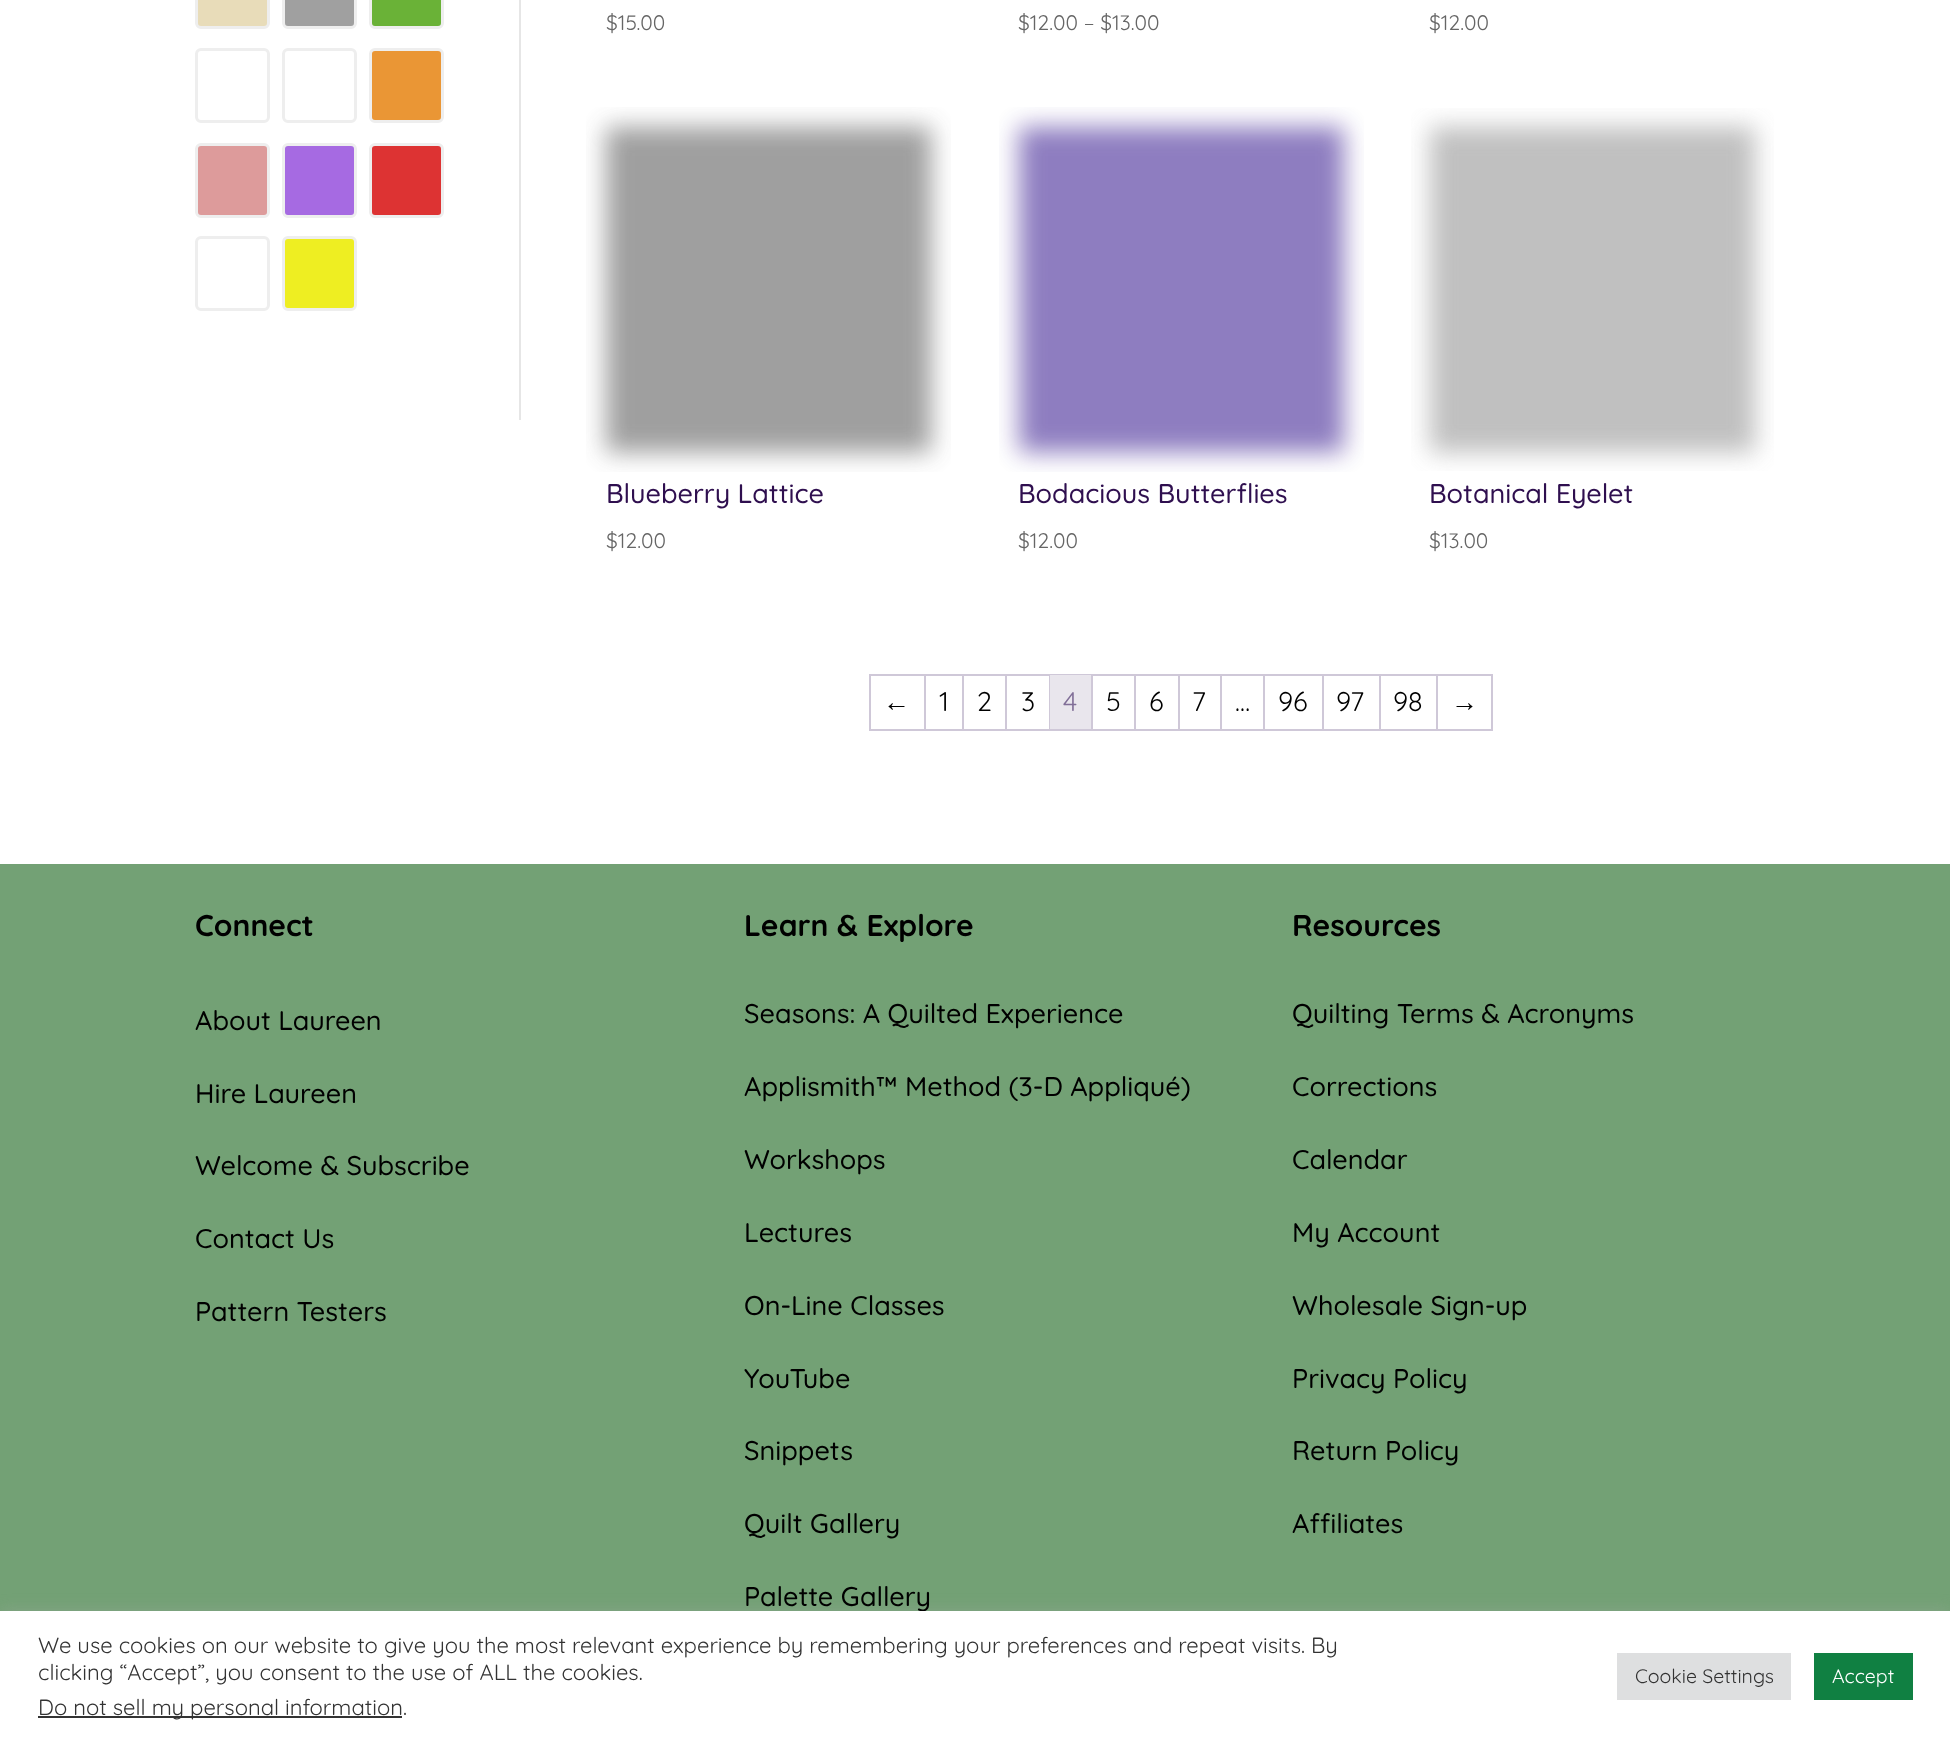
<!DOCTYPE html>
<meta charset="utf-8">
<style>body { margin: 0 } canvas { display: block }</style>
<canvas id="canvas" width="1950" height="1741"></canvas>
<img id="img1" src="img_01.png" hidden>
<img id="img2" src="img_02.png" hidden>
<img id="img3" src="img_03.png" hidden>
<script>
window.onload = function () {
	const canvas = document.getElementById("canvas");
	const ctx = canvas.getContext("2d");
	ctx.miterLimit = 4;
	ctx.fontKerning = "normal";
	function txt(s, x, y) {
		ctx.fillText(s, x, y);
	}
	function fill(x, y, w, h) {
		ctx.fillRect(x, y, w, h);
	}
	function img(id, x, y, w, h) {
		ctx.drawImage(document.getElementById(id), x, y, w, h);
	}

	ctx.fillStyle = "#FFFFFF";
	fill(0, 0, 1950, 1741);
	ctx.fillStyle = "#E6E6E6";
	fill(519, 0, 2, 420);
	ctx.fillStyle = "#E8DCB9";
	ctx.beginPath();
	ctx.roundRect(196.5, -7.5, 72, 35, 4.5);
	ctx.fill();
	ctx.strokeStyle = "#EEEEEE";
	ctx.lineWidth = 3;
	ctx.stroke();
	ctx.fillStyle = "#A0A0A0";
	ctx.beginPath();
	ctx.roundRect(283.5, -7.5, 72, 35, 4.5);
	ctx.fill();
	ctx.stroke();
	ctx.fillStyle = "#6AB237";
	ctx.beginPath();
	ctx.roundRect(370.5, -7.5, 72, 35, 4.5);
	ctx.fill();
	ctx.stroke();
	ctx.beginPath();
	ctx.roundRect(196.5, 49.5, 72, 72, 4.5);
	ctx.stroke();
	ctx.beginPath();
	ctx.roundRect(283.5, 49.5, 72, 72, 4.5);
	ctx.stroke();
	ctx.fillStyle = "#EA9635";
	ctx.beginPath();
	ctx.roundRect(370.5, 49.5, 72, 72, 4.5);
	ctx.fill();
	ctx.stroke();
	ctx.fillStyle = "#DD9B9B";
	ctx.beginPath();
	ctx.roundRect(196.5, 144.5, 72, 72, 4.5);
	ctx.fill();
	ctx.stroke();
	ctx.fillStyle = "#A66AE2";
	ctx.beginPath();
	ctx.roundRect(283.5, 144.5, 72, 72, 4.5);
	ctx.fill();
	ctx.stroke();
	ctx.fillStyle = "#DD3333";
	ctx.beginPath();
	ctx.roundRect(370.5, 144.5, 72, 72, 4.5);
	ctx.fill();
	ctx.stroke();
	ctx.beginPath();
	ctx.roundRect(196.5, 237.5, 72, 72, 4.5);
	ctx.stroke();
	ctx.fillStyle = "#EEEE22";
	ctx.beginPath();
	ctx.roundRect(283.5, 237.5, 72, 72, 4.5);
	ctx.fill();
	ctx.stroke();
	img("img1", 586, 107, 365, 365);
	img("img2", 999, 107, 365, 365);
	img("img3", 1411, 108, 363, 363);
	ctx.fillStyle = "#CFC8D8";
	fill(869, 674, 624, 2);
	fill(869, 729, 624, 2);
	fill(869, 674, 2, 57);
	fill(924, 675, 2, 54);
	fill(962, 675, 2, 54);
	fill(1005, 675, 2, 54);
	fill(1049, 675, 1, 54);
	fill(1091, 675, 2, 54);
	ctx.fillStyle = "#E9E6ED";
	fill(1050, 675, 41, 54);
	ctx.fillStyle = "#CFC8D8";
	fill(1134, 675, 2, 54);
	fill(1178, 675, 2, 54);
	fill(1220, 675, 2, 54);
	fill(1263, 675, 2, 54);
	fill(1322, 675, 2, 54);
	fill(1379, 675, 2, 54);
	fill(1436, 675, 2, 54);
	fill(1491, 675, 2, 54);
	ctx.fillStyle = "#73A175";
	fill(0, 864, 1950, 747);
	ctx.fillStyle = "rgba(172, 171, 171, 0.3)";
	ctx.filter = "blur(7.5px)";
	ctx.beginPath();
	ctx.rect(0, 1610, 1950, 130);
	ctx.fill();
	ctx.filter = "none";
	ctx.font = "21px Quicksand";
	ctx.fillStyle = "#666666";
	txt("$15.00", 606, 30);
	txt("$12.00 – $13.00", 1018, 30);
	txt("$12.00", 1429, 30);
	ctx.font = "500 27px Quicksand";
	ctx.fillStyle = "#2F0F4F";
	txt("Blueberry Lattice", 606, 503);
	ctx.font = "21px Quicksand";
	ctx.fillStyle = "#666666";
	txt("$12.00", 606, 548);
	ctx.font = "500 27px Quicksand";
	ctx.fillStyle = "#2F0F4F";
	txt("Bodacious Butterflies", 1018, 503);
	ctx.font = "21px Quicksand";
	ctx.fillStyle = "#666666";
	txt("$12.00", 1018, 548);
	ctx.font = "500 27px Quicksand";
	ctx.fillStyle = "#2F0F4F";
	txt("Botanical Eyelet", 1429, 503);
	ctx.font = "21px Quicksand";
	ctx.fillStyle = "#666666";
	txt("$13.00", 1429, 548);
	ctx.font = "27px Liberation Sans";
	ctx.fillStyle = "#000000";
	txt("←", 883, 711);
	ctx.font = "27px Quicksand";
	txt("1", 939, 711);
	txt("2", 977, 711);
	txt("3", 1021, 711);
	ctx.fillStyle = "#816F98";
	txt("4", 1063, 711);
	ctx.fillStyle = "#000000";
	txt("5", 1106, 711);
	txt("6", 1149, 711);
	txt("7", 1192, 711);
	txt("…", 1235, 711);
	txt("96", 1278, 711);
	txt("97", 1336, 711);
	txt("98", 1393, 711);
	ctx.font = "27px Liberation Sans";
	txt("→", 1451, 711);
	ctx.font = "bold 30px Quicksand";
	txt("Connect", 195, 936);
	ctx.font = "500 27px Quicksand";
	txt("About Laureen", 195, 1030);
	txt("Hire Laureen", 195, 1103);
	txt("Welcome & Subscribe", 195, 1175);
	txt("Contact Us", 195, 1248);
	txt("Pattern Testers", 195, 1321);
	ctx.font = "bold 30px Quicksand";
	txt("Learn & Explore", 744, 936);
	ctx.font = "500 27px Quicksand";
	txt("Seasons: A Quilted Experience", 744, 1023);
	txt("Applismith™ Method (3-D Appliqué)", 744, 1096);
	txt("Workshops", 744, 1169);
	txt("Lectures", 744, 1242);
	txt("On-Line Classes", 744, 1315);
	txt("YouTube", 744, 1388);
	txt("Snippets", 744, 1460);
	txt("Quilt Gallery", 744, 1533);
	txt("Palette Gallery", 744, 1606);
	ctx.font = "bold 30px Quicksand";
	txt("Resources", 1292, 936);
	ctx.font = "500 27px Quicksand";
	txt("Quilting Terms & Acronyms", 1292, 1023);
	txt("Corrections", 1292, 1096);
	txt("Calendar", 1292, 1169);
	txt("My Account", 1292, 1242);
	txt("Wholesale Sign-up", 1292, 1315);
	txt("Privacy Policy", 1292, 1388);
	txt("Return Policy", 1292, 1460);
	txt("Affiliates", 1292, 1533);
	ctx.fillStyle = "#FFFFFF";
	fill(0, 1611, 1950, 130);
	ctx.font = "22px Quicksand";
	ctx.fillStyle = "#333333";
	txt("We use cookies on our website to give you the most relevant experience by remembering your preferences and repeat visits. By", 38, 1653);
	txt("clicking “Accept”, you consent to the use of ALL the cookies.", 38, 1680);
	fill(38, 1716, 364, 2);
	txt("Do not sell my personal information.", 38, 1715);
	ctx.fillStyle = "#DEDFE0";
	fill(1617, 1653, 174, 47);
	ctx.font = "19.5px Quicksand";
	ctx.fillStyle = "#333333";
	txt("Cookie Settings", 1635, 1683);
	ctx.fillStyle = "#108042";
	fill(1814, 1653, 99, 47);
	ctx.fillStyle = "#FFFFFF";
	txt("Accept", 1832, 1683);
};
</script>
